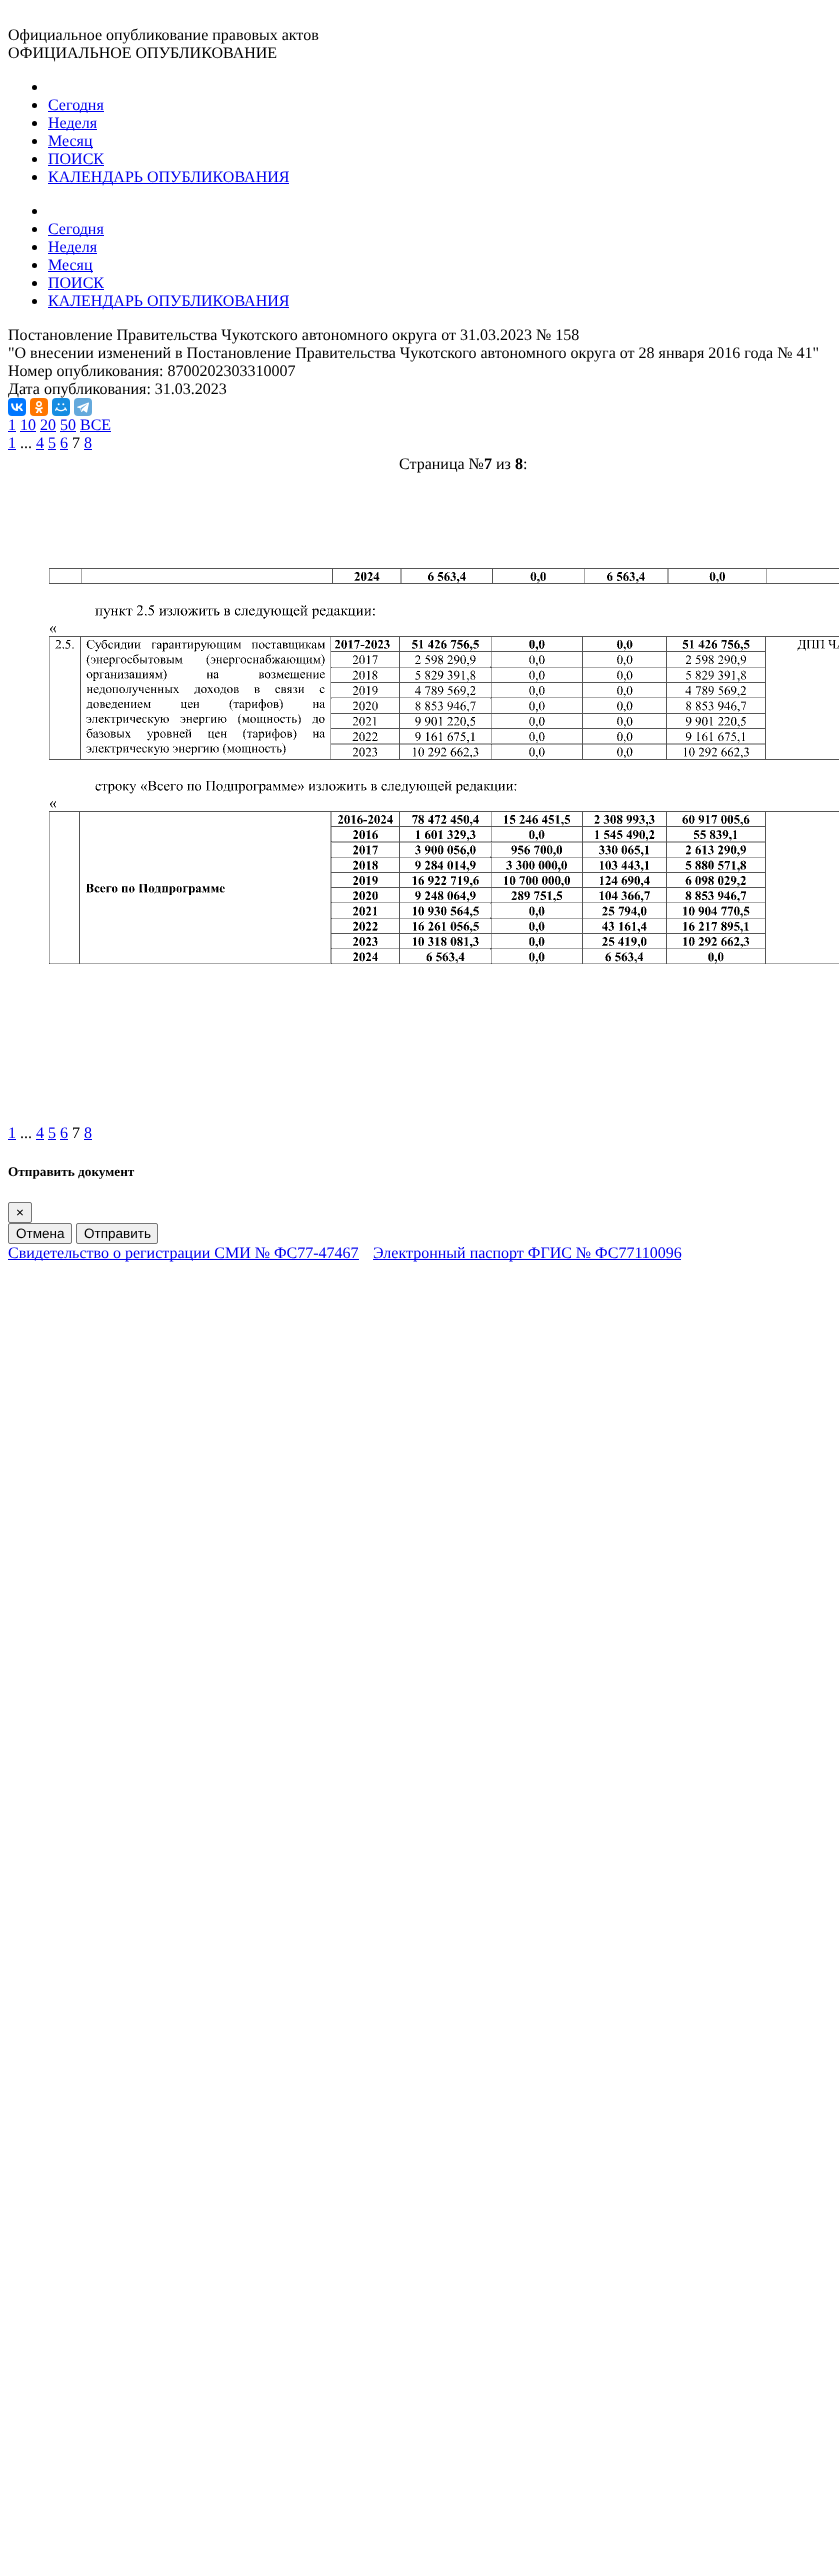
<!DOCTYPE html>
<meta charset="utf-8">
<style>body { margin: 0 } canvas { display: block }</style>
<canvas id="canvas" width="839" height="2575"></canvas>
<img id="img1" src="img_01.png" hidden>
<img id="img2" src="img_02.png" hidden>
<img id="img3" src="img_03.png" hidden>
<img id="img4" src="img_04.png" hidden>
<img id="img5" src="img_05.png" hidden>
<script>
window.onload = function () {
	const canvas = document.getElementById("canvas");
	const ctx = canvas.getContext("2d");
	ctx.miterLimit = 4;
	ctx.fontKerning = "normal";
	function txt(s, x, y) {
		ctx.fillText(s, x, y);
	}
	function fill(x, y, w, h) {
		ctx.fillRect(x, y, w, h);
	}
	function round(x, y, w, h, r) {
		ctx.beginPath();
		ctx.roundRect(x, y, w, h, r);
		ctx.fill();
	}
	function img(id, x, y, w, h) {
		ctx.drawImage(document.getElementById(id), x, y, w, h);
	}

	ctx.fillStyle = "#FFFFFF";
	fill(0, 0, 839, 2575);
	ctx.fillStyle = "#000000";
	ctx.beginPath();
	ctx.arc(34.5, 87.5, 2.5, 0, Math.PI * 2);
	ctx.fill();
	ctx.beginPath();
	ctx.arc(34.5, 105.5, 2.5, 0, Math.PI * 2);
	ctx.fill();
	ctx.fillStyle = "#0000EE";
	fill(48, 111, 56, 1);
	ctx.fillStyle = "#000000";
	ctx.beginPath();
	ctx.arc(34.5, 123.5, 2.5, 0, Math.PI * 2);
	ctx.fill();
	ctx.fillStyle = "#0000EE";
	fill(48, 129, 49, 1);
	ctx.fillStyle = "#000000";
	ctx.beginPath();
	ctx.arc(34.5, 141.5, 2.5, 0, Math.PI * 2);
	ctx.fill();
	ctx.fillStyle = "#0000EE";
	fill(48, 147, 45, 1);
	ctx.fillStyle = "#000000";
	ctx.beginPath();
	ctx.arc(34.5, 159.5, 2.5, 0, Math.PI * 2);
	ctx.fill();
	ctx.fillStyle = "#0000EE";
	fill(48, 165, 56, 1);
	ctx.fillStyle = "#000000";
	ctx.beginPath();
	ctx.arc(34.5, 177.5, 2.5, 0, Math.PI * 2);
	ctx.fill();
	ctx.fillStyle = "#0000EE";
	fill(48, 183, 241, 1);
	ctx.fillStyle = "#000000";
	ctx.beginPath();
	ctx.arc(34.5, 211.5, 2.5, 0, Math.PI * 2);
	ctx.fill();
	ctx.beginPath();
	ctx.arc(34.5, 229.5, 2.5, 0, Math.PI * 2);
	ctx.fill();
	ctx.fillStyle = "#0000EE";
	fill(48, 235, 56, 1);
	ctx.fillStyle = "#000000";
	ctx.beginPath();
	ctx.arc(34.5, 247.5, 2.5, 0, Math.PI * 2);
	ctx.fill();
	ctx.fillStyle = "#0000EE";
	fill(48, 253, 49, 1);
	ctx.fillStyle = "#000000";
	ctx.beginPath();
	ctx.arc(34.5, 265.5, 2.5, 0, Math.PI * 2);
	ctx.fill();
	ctx.fillStyle = "#0000EE";
	fill(48, 271, 45, 1);
	ctx.fillStyle = "#000000";
	ctx.beginPath();
	ctx.arc(34.5, 283.5, 2.5, 0, Math.PI * 2);
	ctx.fill();
	ctx.fillStyle = "#0000EE";
	fill(48, 289, 56, 1);
	ctx.fillStyle = "#000000";
	ctx.beginPath();
	ctx.arc(34.5, 301.5, 2.5, 0, Math.PI * 2);
	ctx.fill();
	ctx.fillStyle = "#0000EE";
	fill(48, 307, 241, 1);
	ctx.fillStyle = "#0077FF";
	round(8, 398, 18, 18, 4);
	img("img1", 11, 403, 12, 8);
	ctx.fillStyle = "#FF7700";
	round(30, 398, 18, 18, 4);
	img("img2", 35, 401, 8, 12);
	ctx.fillStyle = "#168DE2";
	round(52, 398, 18, 18, 4);
	img("img3", 55, 403, 12, 9);
	ctx.fillStyle = "#64A9DC";
	round(74, 398, 18, 18, 4);
	img("img4", 77, 402, 12, 11);
	ctx.fillStyle = "#0000EE";
	fill(8, 431, 8, 1);
	fill(20, 431, 16, 1);
	fill(40, 431, 16, 1);
	fill(60, 431, 16, 1);
	fill(80, 431, 31, 1);
	fill(8, 449, 8, 1);
	fill(36, 449, 8, 1);
	fill(84, 449, 8, 1);
	fill(48, 449, 8, 1);
	fill(60, 449, 8, 1);
	img("img5", 49, 568, 790, 396);
	fill(8, 1139, 8, 1);
	fill(36, 1139, 8, 1);
	fill(84, 1139, 8, 1);
	fill(48, 1139, 8, 1);
	fill(60, 1139, 8, 1);
	ctx.fillStyle = "#EFEFEF";
	ctx.beginPath();
	ctx.roundRect(8.5, 1202.5, 23, 20, 1.5);
	ctx.fill();
	ctx.strokeStyle = "#767676";
	ctx.stroke();
	ctx.beginPath();
	ctx.roundRect(8.5, 1223.5, 63, 20, 1.5);
	ctx.fill();
	ctx.stroke();
	ctx.beginPath();
	ctx.roundRect(76.5, 1223.5, 81, 20, 1.5);
	ctx.fill();
	ctx.stroke();
	ctx.fillStyle = "#0000EE";
	fill(8, 1259, 351, 1);
	fill(373, 1259, 308, 1);
	ctx.font = "16px Liberation Serif";
	ctx.fillStyle = "#000000";
	txt("Официальное опубликование правовых актов", 8, 40);
	txt("ОФИЦИАЛЬНОЕ ОПУБЛИКОВАНИЕ", 8, 58);
	ctx.fillStyle = "#0000EE";
	txt("Сегодня", 48, 110);
	txt("Неделя", 48, 128);
	txt("Месяц", 48, 146);
	txt("ПОИСК", 48, 164);
	txt("КАЛЕНДАРЬ ОПУБЛИКОВАНИЯ", 48, 182);
	txt("Сегодня", 48, 234);
	txt("Неделя", 48, 252);
	txt("Месяц", 48, 270);
	txt("ПОИСК", 48, 288);
	txt("КАЛЕНДАРЬ ОПУБЛИКОВАНИЯ", 48, 306);
	ctx.fillStyle = "#000000";
	txt("Постановление Правительства Чукотского автономного округа от 31.03.2023 № 158", 8, 340);
	txt("\"О внесении изменений в Постановление Правительства Чукотского автономного округа от 28 января 2016 года № 41\"", 8, 358);
	txt("Номер опубликования: 8700202303310007", 8, 376);
	txt("Дата опубликования: 31.03.2023", 8, 394);
	ctx.fillStyle = "#0000EE";
	txt("1 10 20 50 ВСЕ", 8, 430);
	txt("1", 8, 448);
	ctx.fillStyle = "#000000";
	txt("...", 20, 448);
	ctx.fillStyle = "#0000EE";
	txt("4 5 6", 36, 448);
	ctx.fillStyle = "#000000";
	txt("7", 72, 448);
	ctx.fillStyle = "#0000EE";
	txt("8", 84, 448);
	ctx.fillStyle = "#000000";
	txt("Страница №", 399, 469);
	ctx.font = "bold 16px Liberation Serif";
	txt("7", 484, 469);
	ctx.font = "16px Liberation Serif";
	txt("из", 496, 469);
	ctx.font = "bold 16px Liberation Serif";
	txt("8", 515, 469);
	ctx.font = "16px Liberation Serif";
	txt(":", 523, 469);
	ctx.fillStyle = "#0000EE";
	txt("1", 8, 1138);
	ctx.fillStyle = "#000000";
	txt("...", 20, 1138);
	ctx.fillStyle = "#0000EE";
	txt("4 5 6", 36, 1138);
	ctx.fillStyle = "#000000";
	txt("7", 72, 1138);
	ctx.fillStyle = "#0000EE";
	txt("8", 84, 1138);
	ctx.font = "bold 13.25px Liberation Serif";
	ctx.fillStyle = "#000000";
	txt("Отправить документ", 8, 1176);
	ctx.font = "13.5px Liberation Sans";
	txt("×", 16, 1217);
	txt("Отмена", 16, 1238);
	txt("Отправить", 84, 1238);
	ctx.font = "16px Liberation Serif";
	ctx.fillStyle = "#0000EE";
	txt("Свидетельство о регистрации СМИ № ФС77-47467", 8, 1258);
	txt("Электронный паспорт ФГИС № ФС77110096", 373, 1258);
};
</script>
